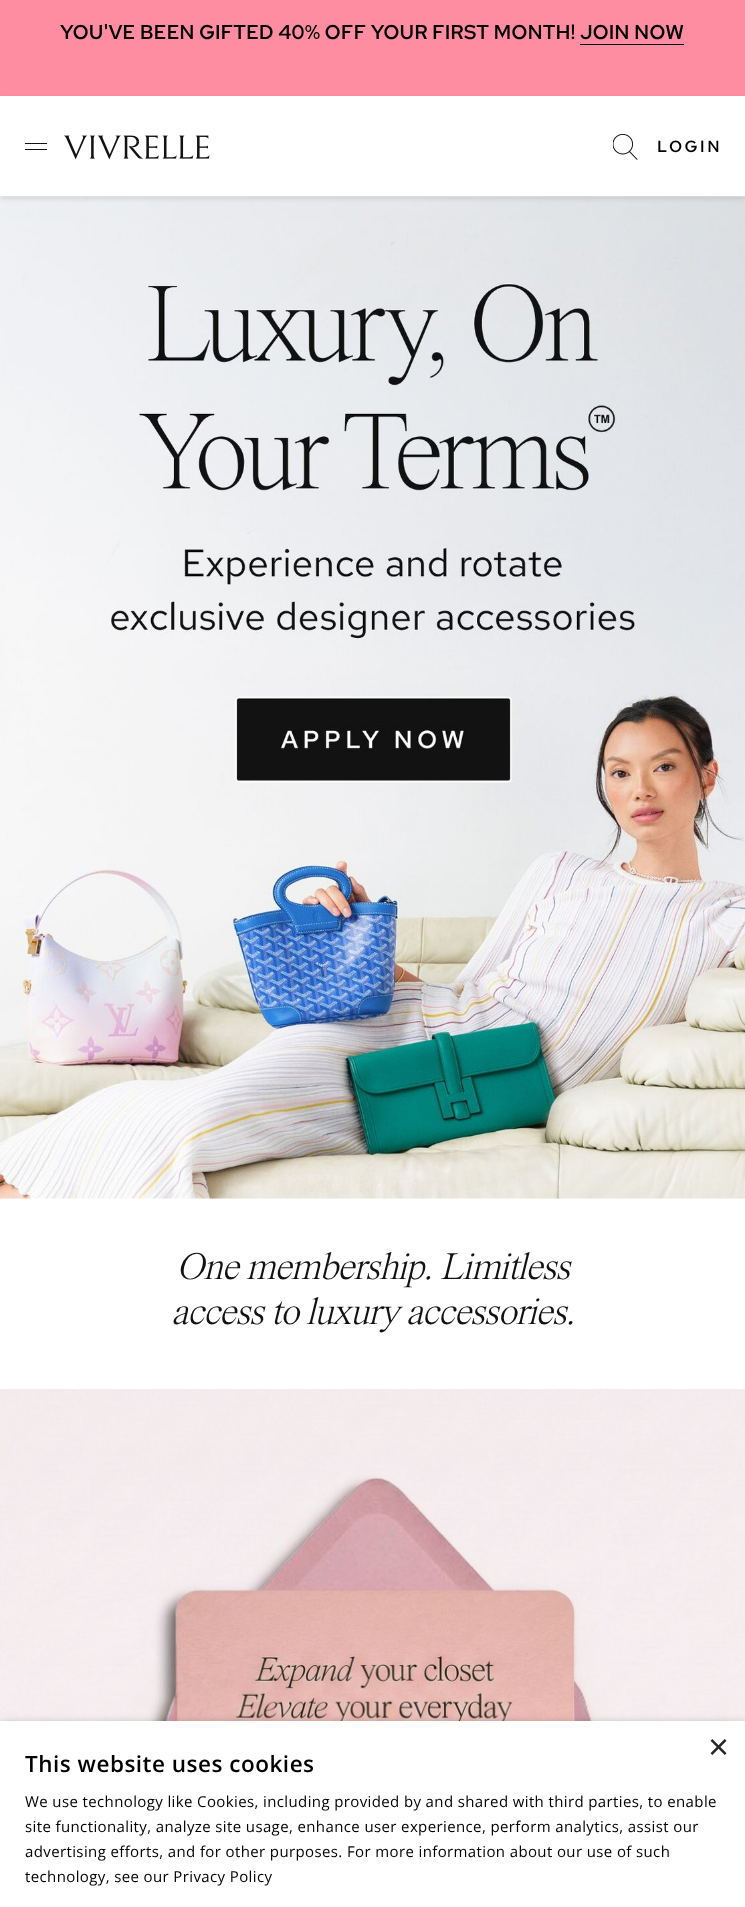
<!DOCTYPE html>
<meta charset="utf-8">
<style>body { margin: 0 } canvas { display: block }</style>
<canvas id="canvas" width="745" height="1907"></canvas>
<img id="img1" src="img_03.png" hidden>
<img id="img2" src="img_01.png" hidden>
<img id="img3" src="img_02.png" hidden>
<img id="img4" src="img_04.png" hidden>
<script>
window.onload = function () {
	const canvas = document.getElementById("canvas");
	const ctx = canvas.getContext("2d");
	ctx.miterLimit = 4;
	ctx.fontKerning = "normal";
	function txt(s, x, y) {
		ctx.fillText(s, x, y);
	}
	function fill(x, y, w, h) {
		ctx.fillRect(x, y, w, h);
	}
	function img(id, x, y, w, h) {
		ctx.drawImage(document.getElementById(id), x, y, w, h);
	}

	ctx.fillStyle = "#FFFFFF";
	fill(0, 0, 745, 1907);
	ctx.fillStyle = "#FF8DA1";
	fill(0, 0, 745, 96);
	ctx.fillStyle = "#000000";
	fill(580, 44, 104, 1);
	img("img1", 0, 196, 745, 1003);
	ctx.fillStyle = "rgba(0, 0, 0, 0.1)";
	ctx.filter = "blur(2.5px)";
	ctx.beginPath();
	ctx.rect(0, 99, 745, 100);
	ctx.fill();
	ctx.filter = "none";
	ctx.fillStyle = "#FFFFFF";
	fill(0, 96, 745, 100);
	ctx.fillStyle = "#121212";
	fill(25, 143, 22, 1);
	fill(25, 149, 22, 1);
	img("img2", 64, 135, 146, 25);
	img("img3", 613, 134, 25, 26);
	img("img4", 0, 1389, 745, 332);
	ctx.fillStyle = "rgba(0, 0, 0, 0.35)";
	ctx.filter = "blur(5px)";
	ctx.beginPath();
	ctx.rect(1, 1724, 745, 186);
	ctx.fill();
	ctx.filter = "none";
	ctx.fillStyle = "#FFFFFF";
	fill(0, 1721, 745, 186);
	ctx.font = "600 20px Red Hat Text";
	ctx.fillStyle = "#000000";
	txt("YOU'VE BEEN GIFTED 40% OFF YOUR FIRST MONTH! JOIN NOW", 60, 39);
	ctx.letterSpacing = "2.5px";
	ctx.font = "500 16.25px Red Hat Text";
	txt("LOGIN", 657, 152);
	ctx.letterSpacing = "-1.25px";
	ctx.font = "italic 300 38.75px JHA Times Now";
	ctx.fillStyle = "#121212";
	txt("One membership. Limitless", 176, 1279);
	txt("access to luxury accessories.", 171, 1324);
	ctx.letterSpacing = "0px";
	ctx.font = "36px Liberation Sans";
	ctx.fillStyle = "#262626";
	txt("×", 708, 1759);
	ctx.letterSpacing = "0.5px";
	ctx.font = "600 22.5px Open Sans";
	ctx.fillStyle = "#000000";
	txt("This website uses cookies", 25, 1772);
	ctx.letterSpacing = "0.38px";
	ctx.font = "15px Open Sans";
	txt("We use technology like Cookies, including provided by and shared with third parties, to enable", 25, 1807);
	txt("site functionality, analyze site usage, enhance user experience, perform analytics, assist our", 25, 1832);
	txt("advertising efforts, and for other purposes. For more information about our use of such", 25, 1857);
	txt("technology, see our Privacy Policy", 25, 1882);
};
</script>
